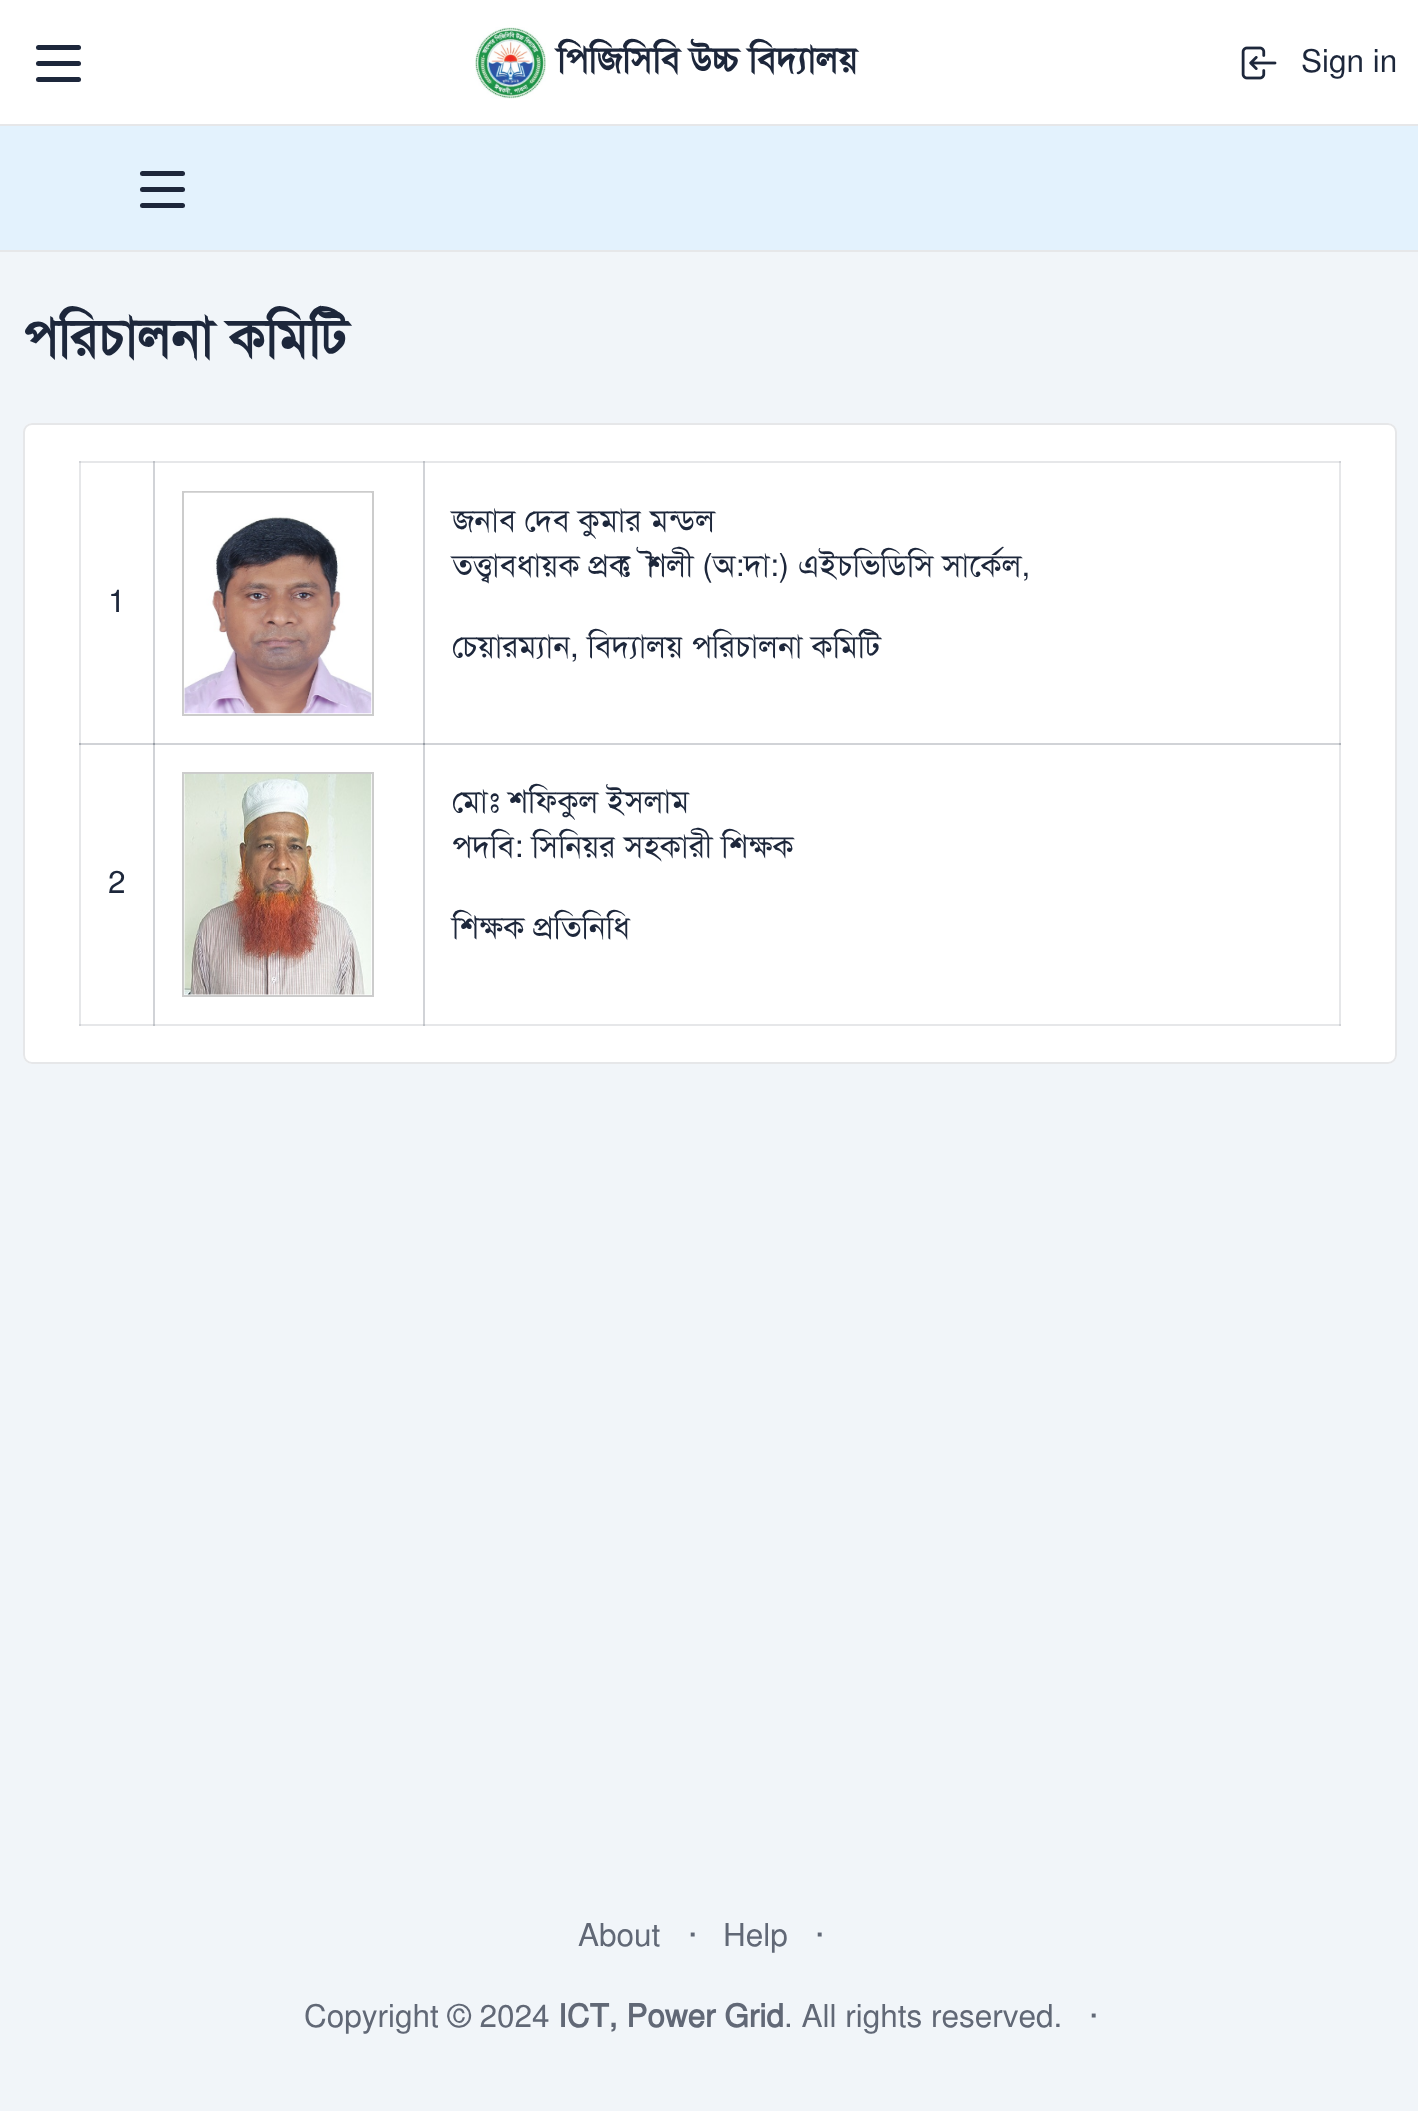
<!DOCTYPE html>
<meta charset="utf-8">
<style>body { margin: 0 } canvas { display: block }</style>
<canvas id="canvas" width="1418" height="2111"></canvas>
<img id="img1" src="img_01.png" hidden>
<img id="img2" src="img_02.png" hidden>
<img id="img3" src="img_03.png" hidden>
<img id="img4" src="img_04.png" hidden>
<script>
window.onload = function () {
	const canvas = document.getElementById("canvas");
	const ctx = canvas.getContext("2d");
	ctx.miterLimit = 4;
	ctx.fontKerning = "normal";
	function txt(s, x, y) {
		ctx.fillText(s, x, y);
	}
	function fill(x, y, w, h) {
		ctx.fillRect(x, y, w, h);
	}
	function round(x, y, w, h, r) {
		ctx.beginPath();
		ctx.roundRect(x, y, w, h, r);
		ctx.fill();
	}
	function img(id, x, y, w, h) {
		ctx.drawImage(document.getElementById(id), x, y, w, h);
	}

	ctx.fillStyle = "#F1F5F9";
	fill(0, 0, 1418, 2111);
	ctx.fillStyle = "#FFFFFF";
	fill(0, 0, 1418, 124);
	ctx.fillStyle = "#E6E7E9";
	fill(0, 124, 1418, 2);
	ctx.fillStyle = "#1D273B";
	round(36, 61, 45, 5, 2.5);
	round(36, 45, 45, 5, 2.5);
	round(36, 77, 45, 5, 2.5);
	img("img1", 475, 27, 71, 72);
	img("img2", 1241, 46, 36, 34);
	ctx.fillStyle = "#E3F2FD";
	fill(0, 126, 1418, 124);
	ctx.fillStyle = "#E6E7E9";
	fill(0, 250, 1418, 2);
	ctx.fillStyle = "#1D273B";
	round(140, 187, 45, 5, 2.5);
	round(140, 171, 45, 5, 2.5);
	round(140, 203, 45, 5, 2.5);
	ctx.fillStyle = "#FFFFFF";
	round(23, 423, 1374, 641, 9);
	ctx.fillStyle = "#E6E7E9";
	fill(79, 461, 2, 565);
	ctx.fillStyle = "#D1D3D7";
	fill(153, 461, 2, 565);
	fill(423, 461, 2, 565);
	ctx.fillStyle = "#E6E7E9";
	fill(1339, 461, 2, 565);
	ctx.beginPath();
	ctx.roundRect(24, 424, 1372, 639, 8);
	ctx.strokeStyle = "#E6E7E9";
	ctx.lineWidth = 2;
	ctx.stroke();
	fill(79, 461, 1262, 2);
	ctx.fillStyle = "#D1D3D7";
	fill(79, 461, 2, 2);
	ctx.fillStyle = "#BFC2C7";
	fill(153, 461, 2, 2);
	fill(423, 461, 2, 2);
	ctx.fillStyle = "#D1D3D7";
	fill(1339, 461, 2, 2);
	fill(79, 743, 1262, 2);
	ctx.fillStyle = "#B0B4BA";
	fill(79, 743, 2, 2);
	ctx.fillStyle = "#989EA6";
	fill(153, 743, 2, 2);
	fill(423, 743, 2, 2);
	ctx.fillStyle = "#B0B4BA";
	fill(1339, 743, 2, 2);
	ctx.strokeStyle = "#CCCCCC";
	ctx.strokeRect(183, 492, 190, 223);
	img("img3", 184, 492, 188, 222);
	ctx.fillStyle = "#E6E7E9";
	fill(79, 1024, 1262, 2);
	ctx.fillStyle = "#D1D3D7";
	fill(79, 1024, 2, 2);
	ctx.fillStyle = "#BFC2C7";
	fill(153, 1024, 2, 2);
	fill(423, 1024, 2, 2);
	ctx.fillStyle = "#D1D3D7";
	fill(1339, 1024, 2, 2);
	ctx.strokeRect(183, 773, 190, 223);
	img("img4", 184, 774, 188, 221);
	ctx.font = "bold 36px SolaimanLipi";
	ctx.fillStyle = "#1D273B";
	txt("পিজিসিবি উচ্চ বিদ্যালয়", 557, 72);
	ctx.font = "31.5px SolaimanLipi";
	txt("Sign in", 1301, 72);
	ctx.font = "bold 54px SolaimanLipi";
	txt("পরিচালনা কমিটি", 23, 356);
	ctx.font = "31.5px SolaimanLipi";
	txt("1", 108, 612);
	txt("জনাব দেব কুমার মন্ডল", 452, 531);
	txt("তত্ত্বাবধায়ক প্রকৌশলী (অ:দা:) এইচভিডিসি সার্কেল,", 452, 576);
	txt("চেয়ারম্যান, বিদ্যালয় পরিচালনা কমিটি", 452, 657);
	txt("2", 108, 893);
	txt("মোঃ শফিকুল ইসলাম", 452, 812);
	txt("পদবি: সিনিয়র সহকারী শিক্ষক", 452, 857);
	txt("শিক্ষক প্রতিনিধি", 452, 938);
	ctx.fillStyle = "#616876";
	txt("About", 578, 1946);
	txt("·", 688, 1946);
	txt("Help", 723, 1946);
	txt("·", 815, 1946);
	txt("Copyright © 2024", 304, 2027);
	ctx.font = "bold 31.5px SolaimanLipi";
	txt("ICT, Power Grid", 558, 2027);
	ctx.font = "31.5px SolaimanLipi";
	txt(". All rights reserved.", 784, 2027);
	txt("·", 1089, 2027);
};
</script>
